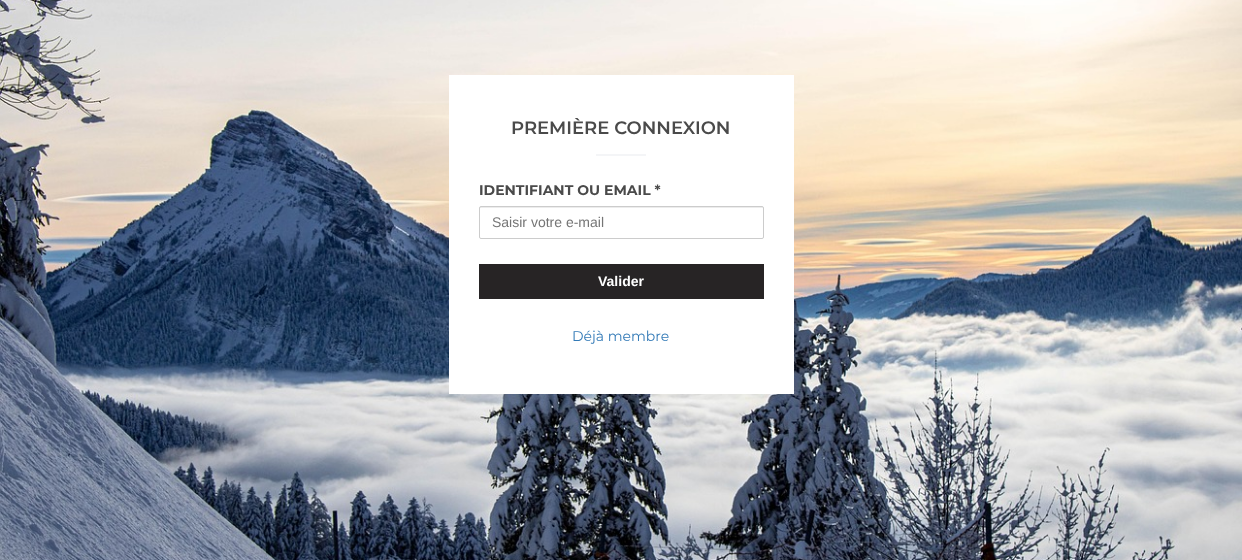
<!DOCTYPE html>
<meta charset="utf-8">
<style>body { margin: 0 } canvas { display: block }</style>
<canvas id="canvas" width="1242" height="560"></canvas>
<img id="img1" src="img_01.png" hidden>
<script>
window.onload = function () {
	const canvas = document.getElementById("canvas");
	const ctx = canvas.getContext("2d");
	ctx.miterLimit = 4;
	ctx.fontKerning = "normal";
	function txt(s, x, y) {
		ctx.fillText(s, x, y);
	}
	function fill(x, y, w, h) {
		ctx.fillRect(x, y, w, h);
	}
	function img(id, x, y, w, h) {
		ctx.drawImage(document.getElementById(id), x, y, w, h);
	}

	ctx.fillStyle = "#FFFFFF";
	fill(0, 0, 1242, 560);
	img("img1", 0, 0, 1242, 560);
	fill(449, 75, 345, 319);
	ctx.fillStyle = "#F4F5F7";
	fill(596, 154, 50, 2);
	ctx.fillStyle = "#ECECEC";
	ctx.beginPath();
	ctx.moveTo(481, 208);
	ctx.lineTo(762, 208);
	ctx.bezierCurveTo(763, 208, 763, 208, 763, 209);
	ctx.bezierCurveTo(763, 208, 763, 207, 762, 207);
	ctx.lineTo(481, 207);
	ctx.lineTo(480, 207);
	ctx.lineTo(480, 209);
	ctx.bezierCurveTo(480, 208, 480, 208, 481, 208);
	ctx.closePath();
	ctx.fill();
	ctx.beginPath();
	ctx.roundRect(479.5, 206.5, 284, 32, 1.5);
	ctx.strokeStyle = "#CCCCCC";
	ctx.stroke();
	ctx.fillStyle = "#272425";
	fill(479, 264, 285, 35);
	ctx.font = "600 18px Montserrat";
	ctx.fillStyle = "#4A4A4A";
	txt("PREMIÈRE CONNEXION", 511, 134);
	ctx.font = "bold 14px Montserrat";
	txt("IDENTIFIANT OU EMAIL *", 479, 195);
	ctx.font = "14px Liberation Sans";
	ctx.fillStyle = "#757575";
	txt("Saisir votre e-mail", 492, 227);
	ctx.font = "bold 14px Liberation Sans";
	ctx.fillStyle = "#FFFFFF";
	txt("Valider", 598, 286);
	ctx.font = "14px Montserrat";
	ctx.fillStyle = "#337AB7";
	txt("Déjà membre", 572, 341);
};
</script>
